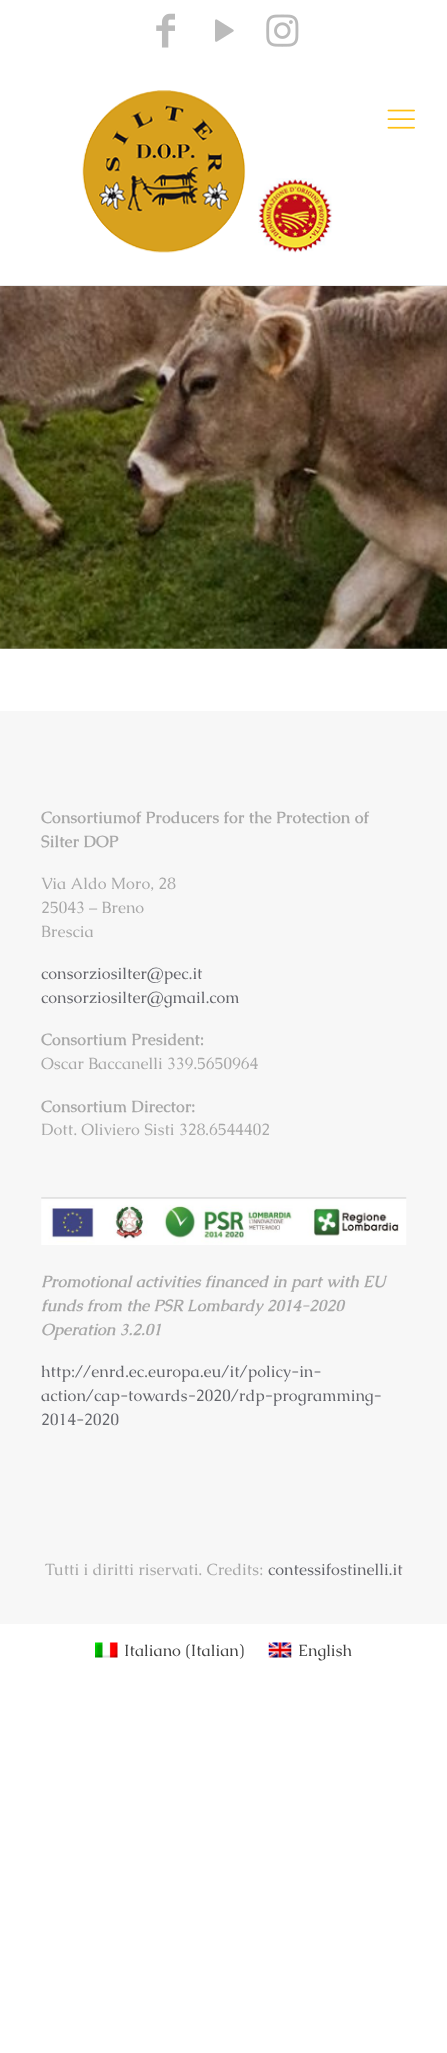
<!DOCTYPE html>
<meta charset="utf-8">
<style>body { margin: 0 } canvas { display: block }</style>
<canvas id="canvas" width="447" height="2053"></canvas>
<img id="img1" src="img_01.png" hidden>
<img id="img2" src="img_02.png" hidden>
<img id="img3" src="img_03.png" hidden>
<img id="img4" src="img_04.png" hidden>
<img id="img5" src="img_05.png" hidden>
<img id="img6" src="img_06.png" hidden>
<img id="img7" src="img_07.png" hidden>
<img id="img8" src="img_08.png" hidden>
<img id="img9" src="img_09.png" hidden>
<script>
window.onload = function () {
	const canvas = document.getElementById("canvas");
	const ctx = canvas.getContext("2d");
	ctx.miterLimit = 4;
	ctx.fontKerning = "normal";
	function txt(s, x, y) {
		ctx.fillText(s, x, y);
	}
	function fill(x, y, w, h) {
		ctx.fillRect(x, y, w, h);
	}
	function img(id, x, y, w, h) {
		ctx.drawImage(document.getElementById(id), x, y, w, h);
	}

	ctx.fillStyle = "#FFFFFF";
	fill(0, 0, 447, 2053);
	img("img1", 0, 286, 447, 363);
	img("img2", 156, 13, 19, 35);
	img("img3", 215, 19, 19, 23);
	img("img4", 266, 14, 33, 33);
	ctx.fillStyle = "#EBEBEB";
	fill(0, 285, 447, 1);
	img("img5", 82, 90, 250, 163);
	img("img6", 387, 109, 28, 20);
	ctx.fillStyle = "#F7F7F7";
	fill(0, 711, 447, 913);
	img("img7", 41, 1197, 366, 48);
	img("img8", 95, 1642, 23, 16);
	img("img9", 268, 1642, 24, 16);
	ctx.font = "bold 16.25px Caudex";
	ctx.fillStyle = "#A8A8A8";
	txt("Consortiumof Producers for the Protection of", 41, 823);
	txt("Silter DOP", 41, 847);
	ctx.font = "16.25px Caudex";
	txt("Via Aldo Moro, 28", 41, 889);
	txt("25043 – Breno", 41, 913);
	txt("Brescia", 41, 937);
	ctx.fillStyle = "#65666C";
	txt("consorziosilter@pec.it", 41, 979);
	txt("consorziosilter@gmail.com", 41, 1003);
	ctx.font = "bold 16.25px Caudex";
	ctx.fillStyle = "#A8A8A8";
	txt("Consortium President:", 41, 1045);
	ctx.font = "16.25px Caudex";
	txt("Oscar Baccanelli 339.5650964", 41, 1069);
	ctx.font = "bold 16.25px Caudex";
	txt("Consortium Director:", 41, 1112);
	ctx.font = "16.25px Caudex";
	txt("Dott. Oliviero Sisti 328.6544402", 41, 1135);
	ctx.font = "italic bold 16.25px Caudex";
	txt("Promotional activities financed in part with EU", 41, 1287);
	txt("funds from the PSR Lombardy 2014-2020", 41, 1311);
	txt("Operation 3.2.01", 41, 1335);
	ctx.font = "16.25px Caudex";
	ctx.fillStyle = "#65666C";
	txt("http://enrd.ec.europa.eu/it/policy-in-", 41, 1377);
	txt("action/cap-towards-2020/rdp-programming-", 41, 1401);
	txt("2014-2020", 41, 1425);
	ctx.fillStyle = "#A8A8A8";
	txt("Tutti i diritti riservati. Credits:", 45, 1575);
	ctx.fillStyle = "#65666C";
	txt("contessifostinelli.it", 268, 1575);
	ctx.fillStyle = "#444444";
	txt("Italiano (Italian)", 124, 1656);
	txt("English", 298, 1656);
};
</script>
